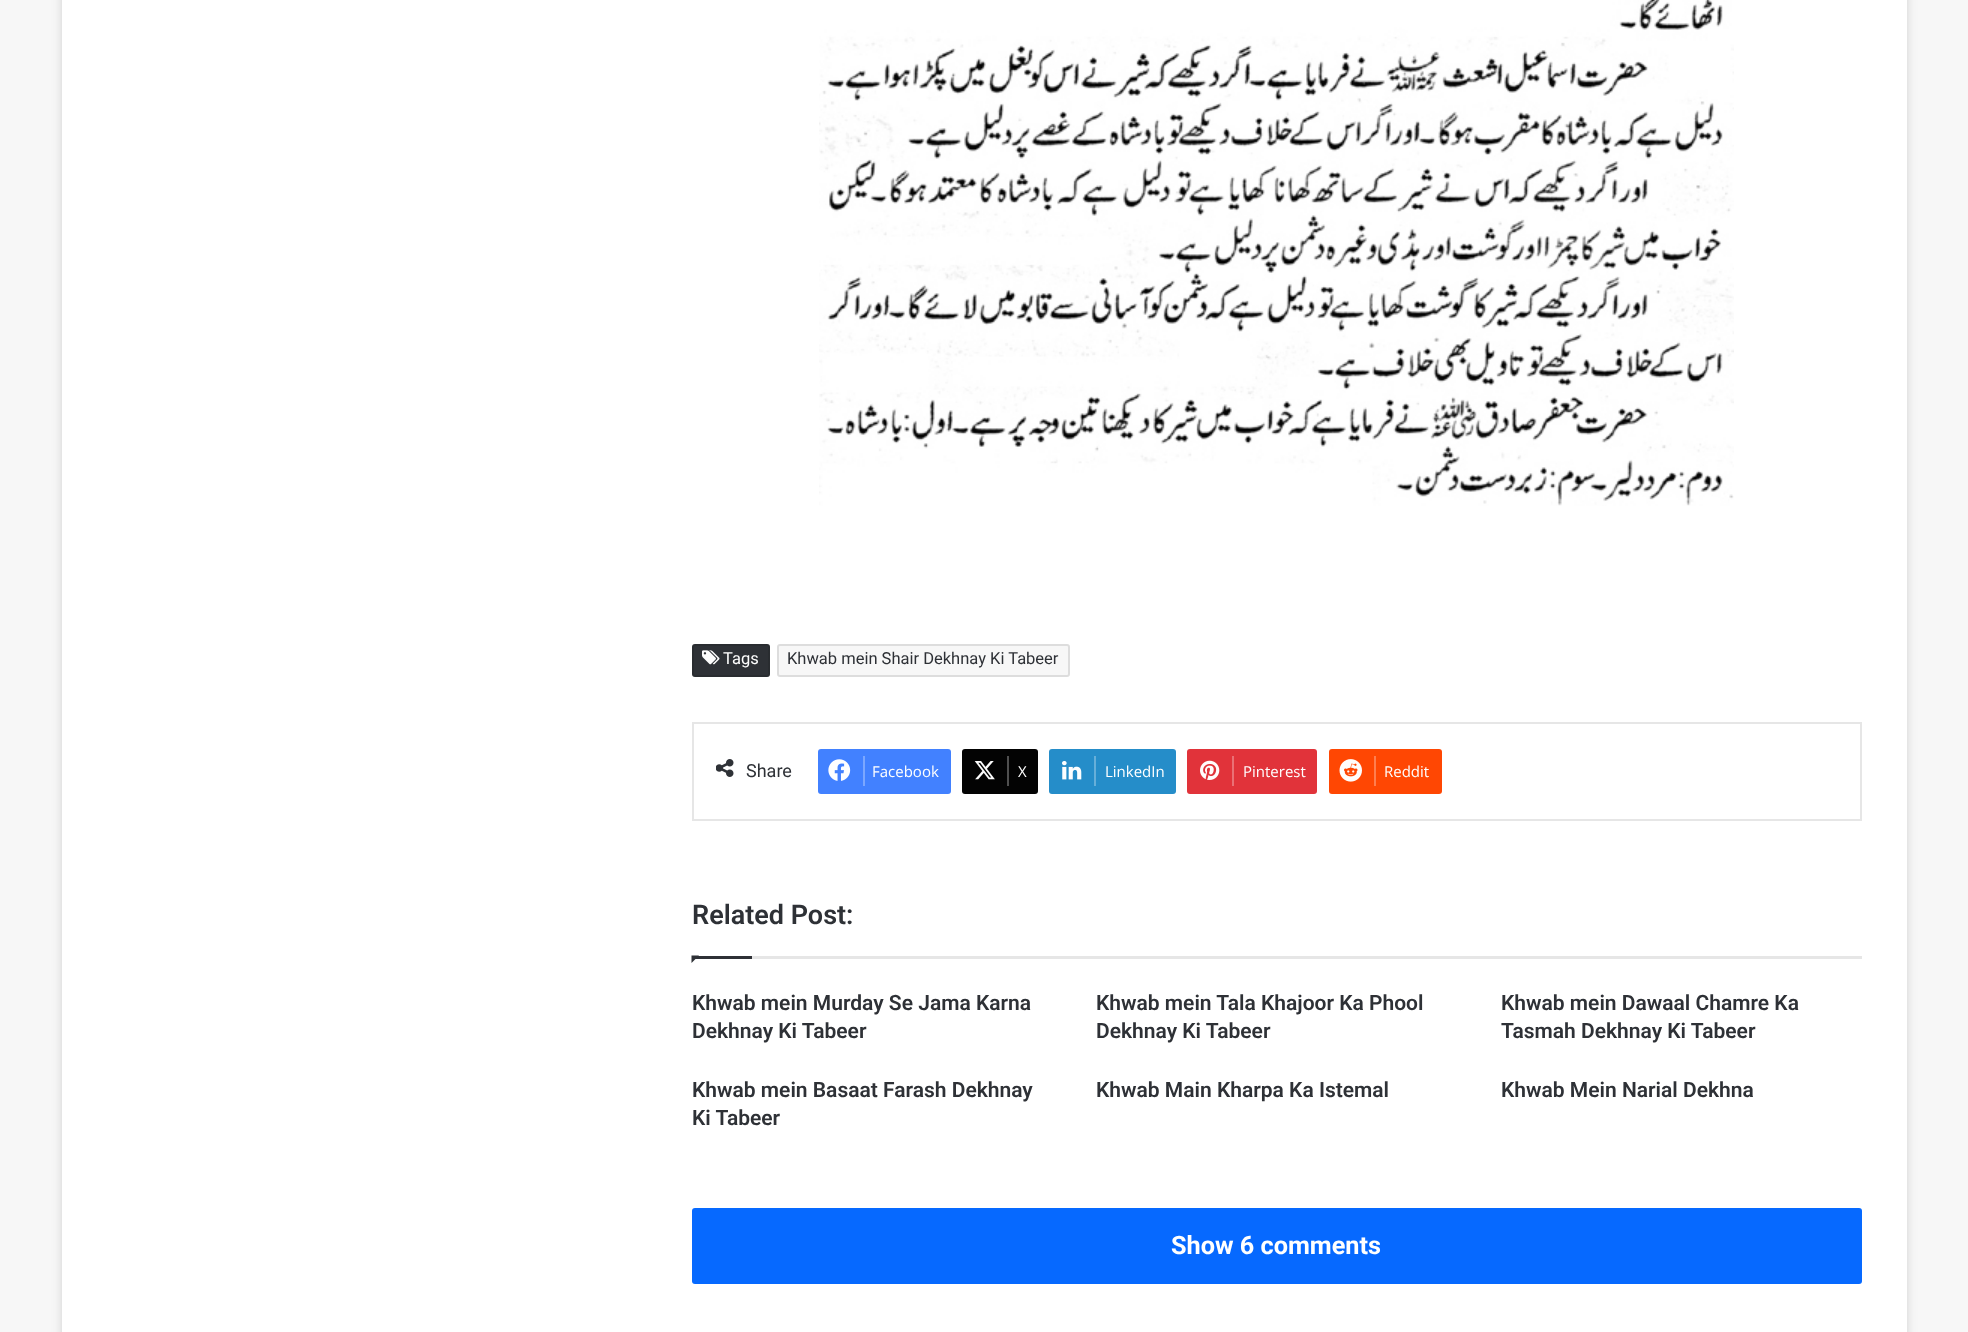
<!DOCTYPE html>
<meta charset="utf-8">
<style>body { margin: 0 } canvas { display: block }</style>
<canvas id="canvas" width="1968" height="1332"></canvas>
<img id="img1" src="img_01.png" hidden>
<img id="img2" src="img_02.png" hidden>
<img id="img3" src="img_03.png" hidden>
<img id="img4" src="img_04.png" hidden>
<img id="img5" src="img_05.png" hidden>
<img id="img6" src="img_06.png" hidden>
<img id="img7" src="img_07.png" hidden>
<img id="img8" src="img_08.png" hidden>
<script>
window.onload = function () {
	const canvas = document.getElementById("canvas");
	const ctx = canvas.getContext("2d");
	ctx.miterLimit = 4;
	ctx.fontKerning = "normal";
	function txt(s, x, y) {
		ctx.fillText(s, x, y);
	}
	function fill(x, y, w, h) {
		ctx.fillRect(x, y, w, h);
	}
	function round(x, y, w, h, r) {
		ctx.beginPath();
		ctx.roundRect(x, y, w, h, r);
		ctx.fill();
	}
	function img(id, x, y, w, h) {
		ctx.drawImage(document.getElementById(id), x, y, w, h);
	}

	ctx.fillStyle = "#F7F7F7";
	fill(0, 0, 1968, 1332);
	ctx.fillStyle = "rgba(171, 171, 171, 0.5)";
	ctx.filter = "blur(5px)";
	ctx.beginPath();
	ctx.rect(62, -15, 1845, 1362);
	ctx.fill();
	ctx.filter = "none";
	ctx.fillStyle = "#FFFFFF";
	fill(62, 0, 1845, 1332);
	img("img1", 819, 0, 915, 506);
	ctx.fillStyle = "#2E3136";
	round(692, 644, 78, 33, 3);
	ctx.beginPath();
	ctx.roundRect(693, 645, 76, 31, 2);
	ctx.strokeStyle = "rgba(3, 3, 3, 0.1)";
	ctx.lineWidth = 2;
	ctx.stroke();
	img("img2", 702, 650, 18, 15);
	ctx.fillStyle = "#F7F7F7";
	round(777, 644, 293, 33, 3);
	ctx.beginPath();
	ctx.roundRect(778, 645, 291, 31, 2);
	ctx.stroke();
	ctx.strokeStyle = "#E6E6E6";
	ctx.strokeRect(693, 723, 1168, 97);
	img("img3", 716, 759, 18, 18);
	ctx.fillStyle = "#4281FF";
	round(818, 749, 133, 45, 3);
	img("img4", 828, 759, 23, 22);
	ctx.fillStyle = "#7BA7FF";
	fill(863, 756, 2, 30);
	ctx.fillStyle = "#030303";
	round(962, 749, 76, 45, 3);
	img("img5", 974, 761, 21, 19);
	ctx.fillStyle = "#4F4F4F";
	fill(1007, 756, 2, 30);
	ctx.fillStyle = "#258DC9";
	round(1049, 749, 127, 45, 3);
	img("img6", 1062, 761, 20, 19);
	ctx.fillStyle = "#66AFD9";
	fill(1094, 756, 2, 30);
	ctx.fillStyle = "#E1333A";
	round(1187, 749, 130, 45, 3);
	img("img7", 1200, 760, 20, 20);
	ctx.fillStyle = "#EA7075";
	fill(1232, 756, 2, 30);
	ctx.fillStyle = "#FF4703";
	round(1329, 749, 113, 45, 3);
	img("img8", 1339, 759, 23, 23);
	ctx.fillStyle = "#FF7E4F";
	fill(1374, 756, 2, 30);
	ctx.fillStyle = "#E6E6E6";
	fill(752, 956, 1110, 3);
	ctx.fillStyle = "#2E3136";
	ctx.beginPath();
	ctx.moveTo(691.5, 955.5);
	ctx.lineTo(699, 955.5);
	ctx.lineTo(691.5, 963);
	ctx.closePath();
	ctx.fill();
	fill(692, 956, 60, 3);
	ctx.fillStyle = "#0669FF";
	round(692, 1208, 1170, 76, 3);
	ctx.font = "16.5px Roboto";
	ctx.fillStyle = "#FFFFFF";
	txt("Tags", 723, 664);
	ctx.fillStyle = "#2E3136";
	txt("Khwab mein Shair Dekhnay Ki Tabeer", 787, 664);
	ctx.font = "18px Roboto";
	txt("Share", 746, 777);
	ctx.font = "15px Open Sans";
	ctx.fillStyle = "#FFFFFF";
	txt("Facebook", 872, 777);
	txt("X", 1018, 777);
	txt("LinkedIn", 1105, 777);
	txt("Pinterest", 1243, 777);
	txt("Reddit", 1384, 777);
	ctx.font = "600 27px Roboto";
	ctx.fillStyle = "#2E3136";
	txt("Related Post:", 692, 924);
	ctx.font = "600 21px Roboto";
	txt("Khwab mein Murday Se Jama Karna", 692, 1010);
	txt("Dekhnay Ki Tabeer", 692, 1038);
	txt("Khwab mein Tala Khajoor Ka Phool", 1096, 1010);
	txt("Dekhnay Ki Tabeer", 1096, 1038);
	txt("Khwab mein Dawaal Chamre Ka", 1501, 1010);
	txt("Tasmah Dekhnay Ki Tabeer", 1501, 1038);
	txt("Khwab mein Basaat Farash Dekhnay", 692, 1097);
	txt("Ki Tabeer", 692, 1125);
	txt("Khwab Main Kharpa Ka Istemal", 1096, 1097);
	txt("Khwab Mein Narial Dekhna", 1501, 1097);
	ctx.font = "bold 25.25px Roboto";
	ctx.fillStyle = "#FFFFFF";
	txt("Show 6 comments", 1171, 1254);
};
</script>
